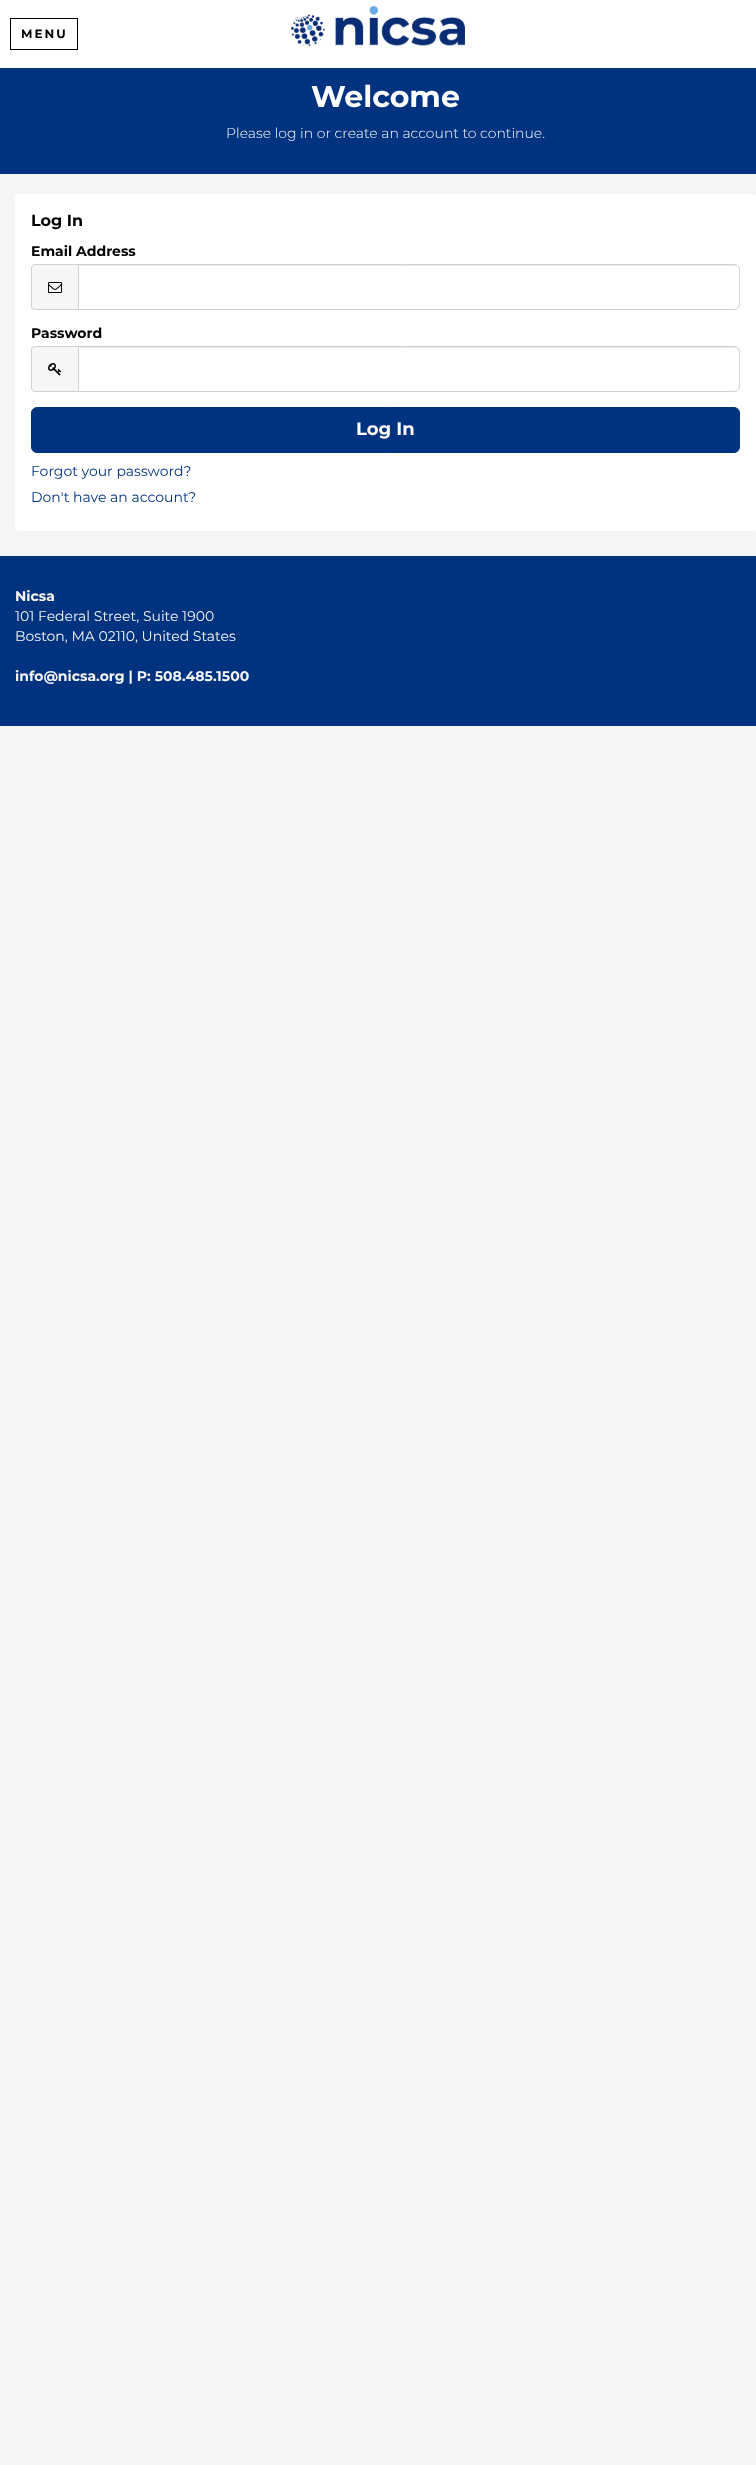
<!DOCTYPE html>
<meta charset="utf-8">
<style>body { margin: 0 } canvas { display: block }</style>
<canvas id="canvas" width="756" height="2465"></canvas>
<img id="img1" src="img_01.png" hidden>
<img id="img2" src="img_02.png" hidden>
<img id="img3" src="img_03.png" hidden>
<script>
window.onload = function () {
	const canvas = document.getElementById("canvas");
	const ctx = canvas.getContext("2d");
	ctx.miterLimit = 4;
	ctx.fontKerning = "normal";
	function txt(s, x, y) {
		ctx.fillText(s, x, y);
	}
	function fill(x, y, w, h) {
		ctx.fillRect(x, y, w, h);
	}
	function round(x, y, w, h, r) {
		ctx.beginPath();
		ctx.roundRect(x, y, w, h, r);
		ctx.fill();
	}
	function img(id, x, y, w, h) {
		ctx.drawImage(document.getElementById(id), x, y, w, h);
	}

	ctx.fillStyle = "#F5F5F5";
	fill(0, 0, 756, 2465);
	ctx.fillStyle = "#FFFFFF";
	fill(0, 0, 756, 68);
	ctx.strokeStyle = "#000000";
	ctx.strokeRect(10.5, 18.5, 67, 31);
	img("img1", 291, 6, 174, 40);
	ctx.fillStyle = "#00337F";
	fill(0, 68, 756, 106);
	ctx.fillStyle = "#FFFFFF";
	round(15, 194, 741, 337, 4);
	ctx.fillStyle = "#F5F6F7";
	ctx.beginPath();
	ctx.roundRect(31, 264, 47, 46, [4, 0, 0, 4]);
	ctx.fill();
	ctx.fillStyle = "#CFD0D2";
	ctx.beginPath();
	ctx.moveTo(35, 264);
	ctx.lineTo(78, 264);
	ctx.lineTo(78, 310);
	ctx.lineTo(35, 310);
	ctx.bezierCurveTo(33, 310, 31, 308, 31, 306);
	ctx.lineTo(31, 268);
	ctx.bezierCurveTo(31, 266, 33, 264, 35, 264);
	ctx.closePath();
	ctx.moveTo(35, 265);
	ctx.lineTo(78, 265);
	ctx.lineTo(78, 309);
	ctx.lineTo(35, 309);
	ctx.bezierCurveTo(33, 309, 32, 308, 32, 306);
	ctx.lineTo(32, 268);
	ctx.bezierCurveTo(32, 266, 33, 265, 35, 265);
	ctx.closePath();
	ctx.fill("evenodd");
	img("img2", 48, 282, 14, 11);
	ctx.fillStyle = "#ECECEC";
	ctx.beginPath();
	ctx.moveTo(79, 266);
	ctx.lineTo(734, 266);
	ctx.bezierCurveTo(737, 266, 739, 268, 739, 271);
	ctx.bezierCurveTo(739, 268, 737, 265, 734, 265);
	ctx.lineTo(79, 265);
	ctx.closePath();
	ctx.fill();
	ctx.beginPath();
	ctx.roundRect(78.5, 264.5, 661, 45, [0, 5.5, 5.5, 0]);
	ctx.strokeStyle = "#CFD0D2";
	ctx.stroke();
	ctx.fillStyle = "#F5F6F7";
	ctx.beginPath();
	ctx.roundRect(31, 346, 47, 46, [4, 0, 0, 4]);
	ctx.fill();
	ctx.fillStyle = "#CFD0D2";
	ctx.beginPath();
	ctx.moveTo(35, 346);
	ctx.lineTo(78, 346);
	ctx.lineTo(78, 392);
	ctx.lineTo(35, 392);
	ctx.bezierCurveTo(33, 392, 31, 390, 31, 388);
	ctx.lineTo(31, 350);
	ctx.bezierCurveTo(31, 348, 33, 346, 35, 346);
	ctx.closePath();
	ctx.moveTo(35, 347);
	ctx.lineTo(78, 347);
	ctx.lineTo(78, 391);
	ctx.lineTo(35, 391);
	ctx.bezierCurveTo(33, 391, 32, 390, 32, 388);
	ctx.lineTo(32, 350);
	ctx.bezierCurveTo(32, 348, 33, 347, 35, 347);
	ctx.closePath();
	ctx.fill("evenodd");
	img("img3", 48, 363, 14, 13);
	ctx.fillStyle = "#ECECEC";
	ctx.beginPath();
	ctx.moveTo(79, 348);
	ctx.lineTo(734, 348);
	ctx.bezierCurveTo(737, 348, 739, 350, 739, 353);
	ctx.bezierCurveTo(739, 350, 737, 347, 734, 347);
	ctx.lineTo(79, 347);
	ctx.closePath();
	ctx.fill();
	ctx.beginPath();
	ctx.roundRect(78.5, 346.5, 661, 45, [0, 5.5, 5.5, 0]);
	ctx.stroke();
	ctx.fillStyle = "#00337F";
	ctx.beginPath();
	ctx.roundRect(31.5, 407.5, 708, 45, 5.5);
	ctx.fill();
	ctx.strokeStyle = "#00337F";
	ctx.stroke();
	fill(0, 556, 756, 170);
	ctx.letterSpacing = "2px";
	ctx.font = "bold 12px Montserrat";
	ctx.fillStyle = "#000000";
	txt("MENU", 21, 38);
	ctx.letterSpacing = "0px";
	ctx.font = "bold 30px Montserrat";
	ctx.fillStyle = "#FFFFFF";
	txt("Welcome", 311, 107);
	ctx.font = "300 14px Montserrat";
	txt("Please log in or create an account to continue.", 226, 138);
	ctx.font = "bold 16px Montserrat";
	ctx.fillStyle = "#000000";
	txt("Log In", 31, 226);
	ctx.font = "bold 14px Montserrat";
	txt("Email Address", 31, 256);
	txt("Password", 31, 338);
	ctx.font = "bold 18px Montserrat";
	ctx.fillStyle = "#FFFFFF";
	txt("Log In", 356, 435);
	ctx.font = "14px Montserrat";
	ctx.fillStyle = "#00337F";
	txt("Forgot your password?", 31, 476);
	txt("Don't have an account?", 31, 502);
	ctx.font = "bold 14px Montserrat";
	ctx.fillStyle = "#F5F6F7";
	txt("Nicsa", 15, 601);
	ctx.font = "14px Montserrat";
	txt("101 Federal Street, Suite 1900", 15, 621);
	txt("Boston, MA 02110, United States", 15, 641);
	ctx.font = "bold 14px Montserrat";
	txt("info@nicsa.org | P: 508.485.1500", 15, 681);
};
</script>
